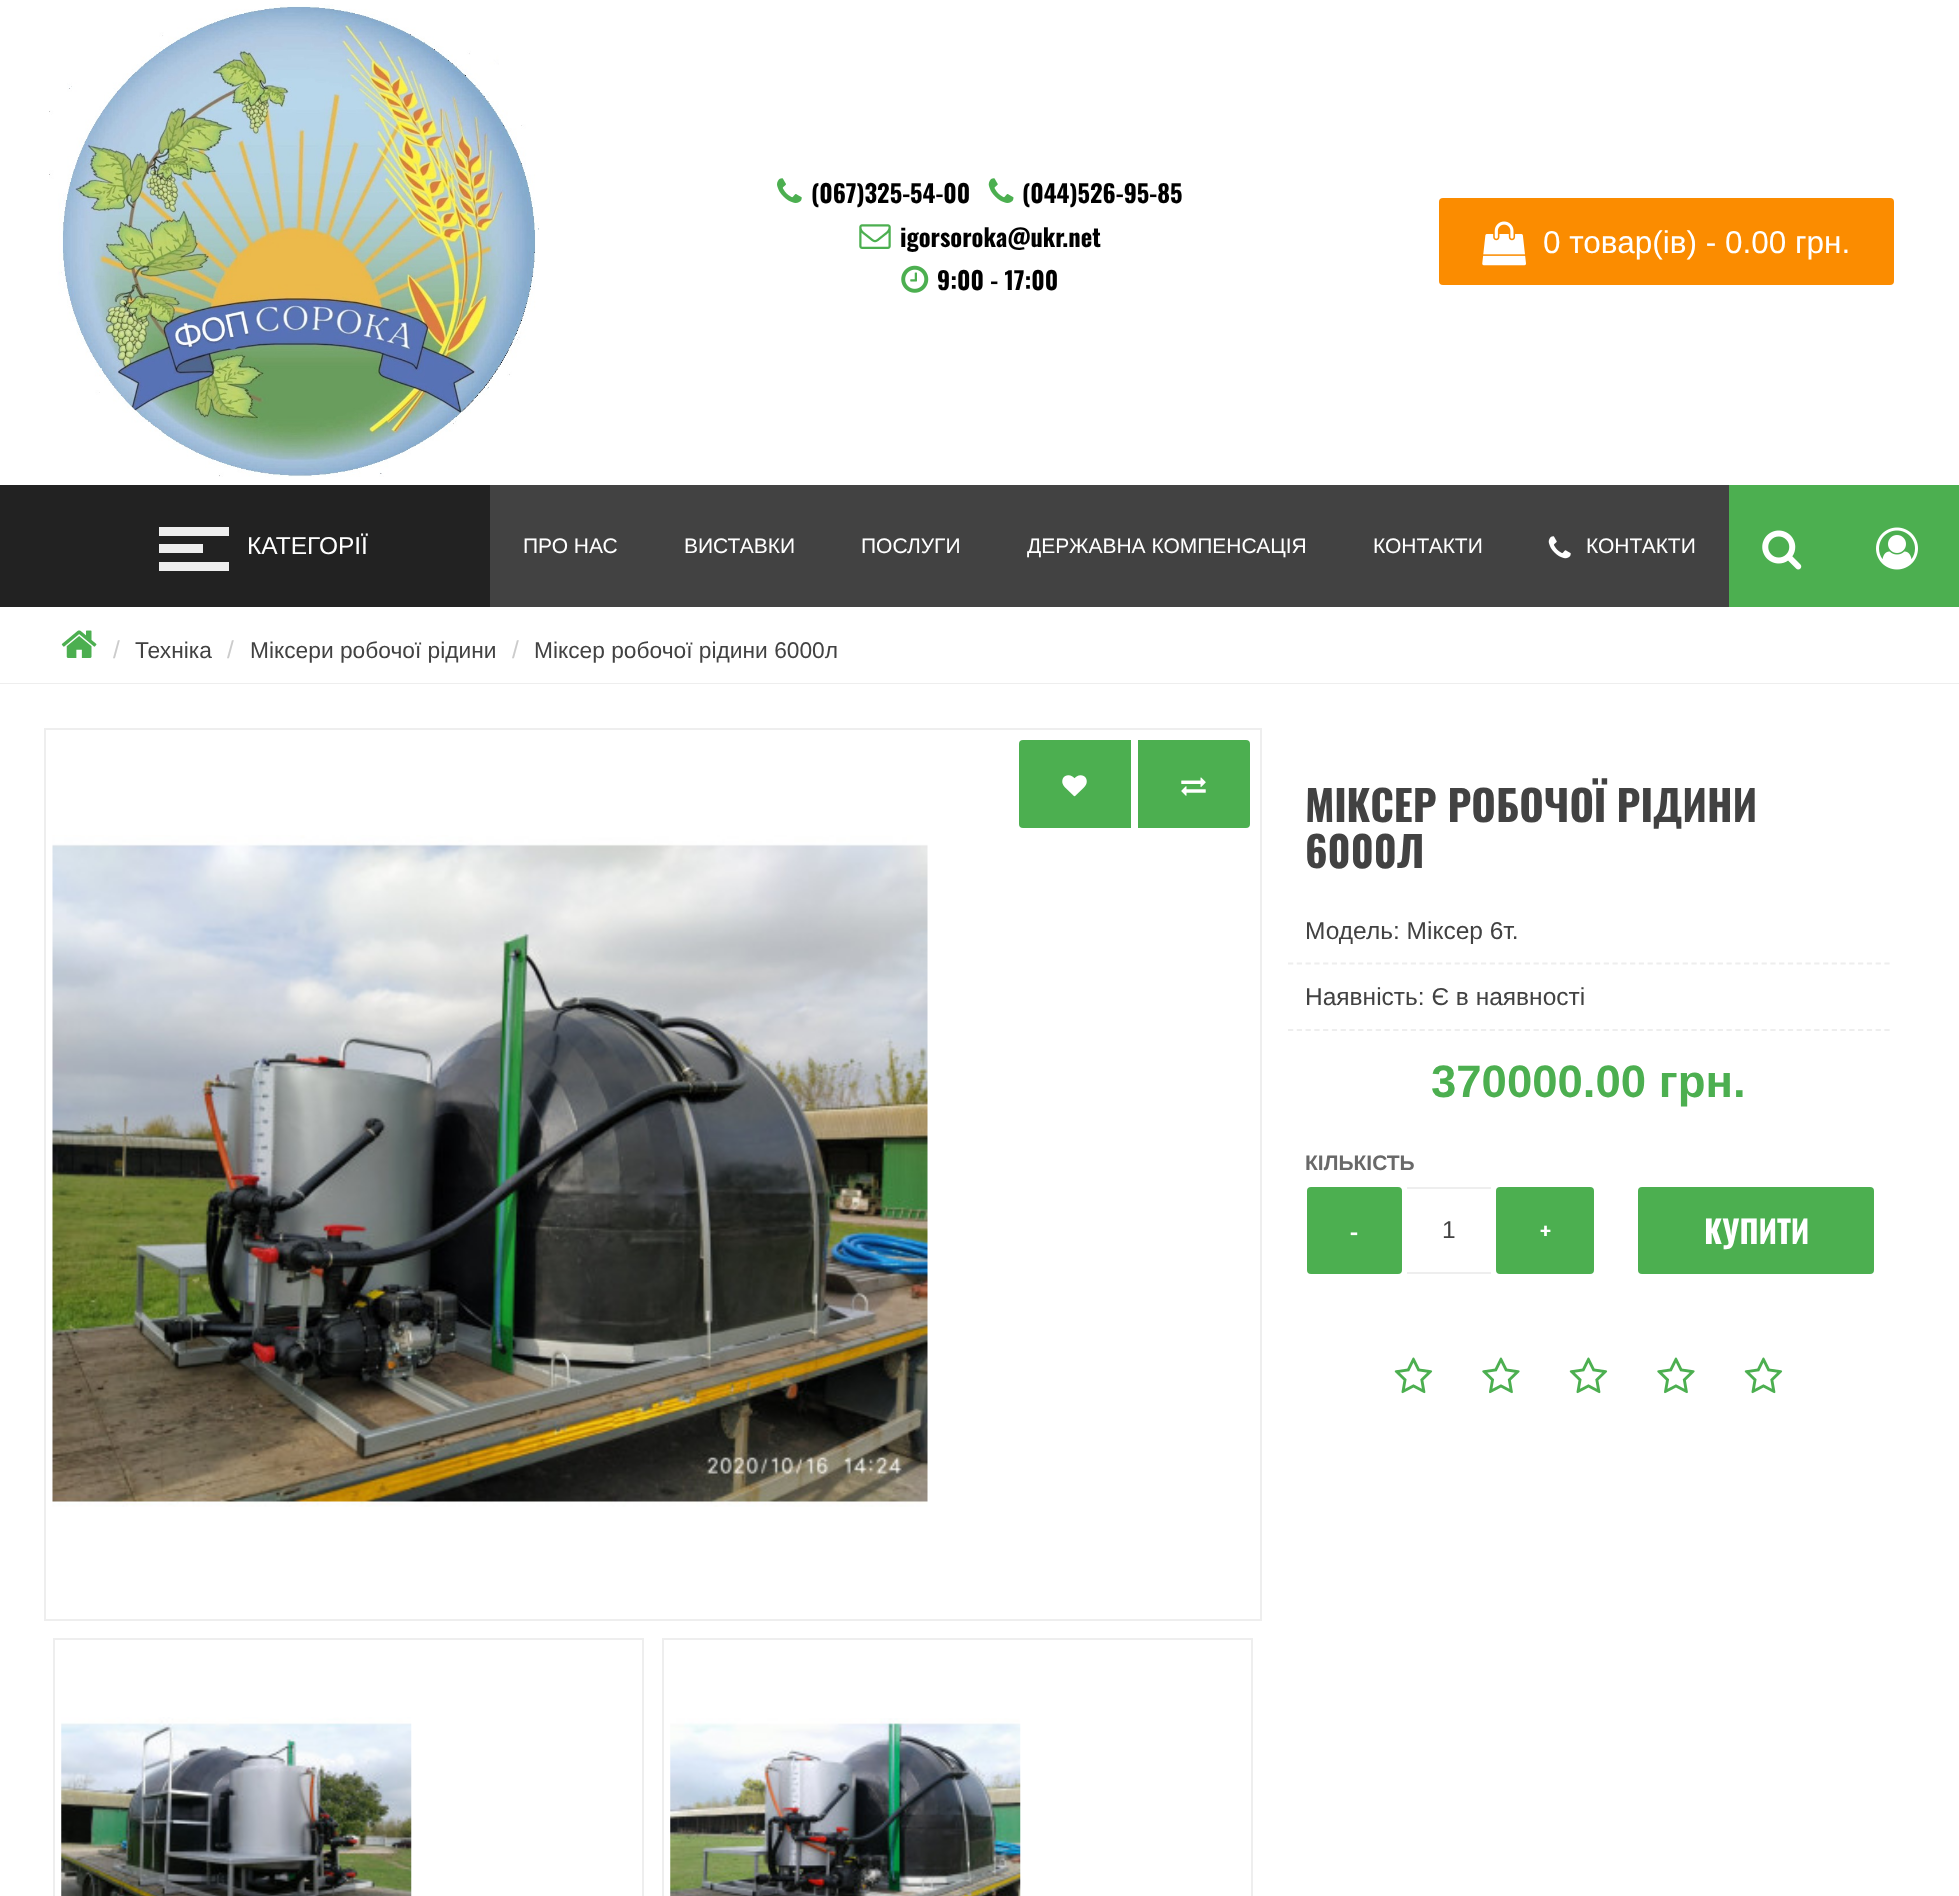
<!DOCTYPE html>
<meta charset="utf-8">
<style>body { margin: 0 } canvas { display: block }</style>
<canvas id="canvas" width="1959" height="1896"></canvas>
<img id="img1" src="img_01.png" hidden>
<img id="img2" src="img_02.png" hidden>
<img id="img3" src="img_03.png" hidden>
<img id="img4" src="img_04.png" hidden>
<img id="img5" src="img_05.png" hidden>
<img id="img6" src="img_06.png" hidden>
<img id="img7" src="img_07.png" hidden>
<img id="img8" src="img_08.png" hidden>
<img id="img9" src="img_09.png" hidden>
<img id="img10" src="img_10.png" hidden>
<img id="img11" src="img_11.png" hidden>
<img id="img12" src="img_12.png" hidden>
<img id="img13" src="img_13.png" hidden>
<img id="img14" src="img_14.png" hidden>
<img id="img15" src="img_15.png" hidden>
<img id="img16" src="img_16.png" hidden>
<img id="img17" src="img_17.png" hidden>
<script>
window.onload = function () {
	const canvas = document.getElementById("canvas");
	const ctx = canvas.getContext("2d");
	ctx.miterLimit = 4;
	ctx.fontKerning = "normal";
	function txt(s, x, y) {
		ctx.fillText(s, x, y);
	}
	function fill(x, y, w, h) {
		ctx.fillRect(x, y, w, h);
	}
	function round(x, y, w, h, r) {
		ctx.beginPath();
		ctx.roundRect(x, y, w, h, r);
		ctx.fill();
	}
	function img(id, x, y, w, h) {
		ctx.drawImage(document.getElementById(id), x, y, w, h);
	}

	ctx.fillStyle = "#FFFFFF";
	fill(0, 0, 1959, 1896);
	img("img1", 49, 4, 490, 473);
	img("img2", 777, 178, 25, 25);
	img("img3", 988, 178, 26, 25);
	img("img4", 859, 224, 32, 25);
	img("img5", 901, 265, 28, 28);
	ctx.fillStyle = "#FB8C00";
	round(1439, 198, 455, 87, 4);
	img("img6", 1482, 221, 44, 45);
	ctx.fillStyle = "#424242";
	fill(490, 485, 1239, 122);
	ctx.fillStyle = "#222222";
	fill(0, 485, 490, 122);
	ctx.fillStyle = "#EEEEEE";
	fill(159, 544, 44, 9);
	fill(159, 527, 70, 9);
	fill(159, 562, 70, 9);
	ctx.fillStyle = "#4CAF50";
	fill(1729, 485, 230, 122);
	img("img7", 1762, 530, 40, 40);
	img("img8", 1548, 536, 23, 23);
	img("img9", 1876, 527, 42, 43);
	img("img10", 61, 630, 36, 28);
	ctx.fillStyle = "#EEEEEE";
	fill(0, 683, 1959, 1);
	ctx.strokeStyle = "#EEEEEE";
	ctx.lineWidth = 2;
	ctx.strokeRect(45, 729, 1216, 891);
	img("img11", 52, 835, 876, 672);
	ctx.fillStyle = "#4CAF50";
	ctx.beginPath();
	ctx.roundRect(1019, 740, 112, 88, [4, 0, 0, 4]);
	ctx.fill();
	img("img12", 1062, 775, 25, 22);
	ctx.beginPath();
	ctx.roundRect(1138, 740, 112, 88, [0, 4, 4, 0]);
	ctx.fill();
	img("img13", 1181, 777, 25, 19);
	ctx.strokeRect(54, 1639, 589, 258);
	img("img14", 61, 1717, 351, 179);
	ctx.strokeRect(663, 1639, 589, 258);
	img("img15", 670, 1718, 351, 178);
	ctx.beginPath();
	ctx.moveTo(1288, 963.5);
	ctx.lineTo(1890, 963.5);
	ctx.lineWidth = 1.8;
	ctx.setLineDash([5.25, 3.52]);
	ctx.stroke();
	ctx.beginPath();
	ctx.moveTo(1288, 1030);
	ctx.lineTo(1890, 1030);
	ctx.stroke();
	round(1307, 1187, 95, 87, 4);
	ctx.fillStyle = "#EEEEEE";
	fill(1407, 1187, 84, 2);
	fill(1407, 1272, 84, 2);
	ctx.fillStyle = "#4CAF50";
	round(1496, 1187, 98, 87, 4);
	round(1638, 1187, 236, 87, 4);
	img("img16", 1394, 1357, 39, 37);
	img("img17", 1482, 1357, 38, 37);
	img("img16", 1569, 1357, 39, 37);
	img("img17", 1657, 1357, 38, 37);
	img("img16", 1744, 1357, 39, 37);
	ctx.font = "bold 24.5px Oswald";
	ctx.fillStyle = "#000000";
	txt("(067)325-54-00", 811, 203);
	txt("(044)526-95-85", 1022, 203);
	txt("igorsoroka@ukr.net", 900, 247);
	txt("9:00 - 17:00", 937, 290);
	ctx.font = "31.5px Liberation Sans";
	ctx.fillStyle = "#FFFFFF";
	txt("0 товар(ів) - 0.00 грн.", 1543, 253);
	ctx.font = "24.5px Liberation Sans";
	txt("КАТЕГОРІЇ", 247, 554);
	ctx.font = "21px Liberation Sans";
	txt("ПРО НАС", 523, 553);
	txt("ВИСТАВКИ", 684, 553);
	txt("ПОСЛУГИ", 861, 553);
	txt("ДЕРЖАВНА КОМПЕНСАЦІЯ", 1027, 553);
	txt("КОНТАКТИ", 1373, 553);
	txt("КОНТАКТИ", 1586, 553);
	ctx.font = "24.5px Liberation Sans";
	ctx.fillStyle = "#CCCCCC";
	txt("/", 113, 658);
	ctx.font = "22.75px Liberation Sans";
	ctx.fillStyle = "#424242";
	txt("Техніка", 135, 658);
	ctx.font = "24.5px Liberation Sans";
	ctx.fillStyle = "#CCCCCC";
	txt("/", 227, 658);
	ctx.font = "22.75px Liberation Sans";
	ctx.fillStyle = "#424242";
	txt("Міксери робочої рідини", 250, 658);
	ctx.font = "24.5px Liberation Sans";
	ctx.fillStyle = "#CCCCCC";
	txt("/", 512, 658);
	ctx.font = "22.75px Liberation Sans";
	ctx.fillStyle = "#424242";
	txt("Міксер робочої рiдини 6000л", 534, 658);
	ctx.font = "bold 42px Oswald";
	txt("МІКСЕР РОБОЧОЇ РIДИНИ", 1305, 822);
	txt("6000Л", 1305, 868);
	ctx.font = "24.5px Liberation Sans";
	txt("Модель: Міксер 6т.", 1305, 939);
	txt("Наявність: Є в наявності", 1305, 1005);
	ctx.font = "bold 45.5px Liberation Sans";
	ctx.fillStyle = "#4CAF50";
	txt("370000.00 грн.", 1431, 1097);
	ctx.font = "bold 21px Liberation Sans";
	ctx.fillStyle = "#696969";
	txt("КІЛЬКІСТЬ", 1305, 1170);
	ctx.font = "bold 24.5px Oswald";
	ctx.fillStyle = "#FFFFFF";
	txt("-", 1350, 1241);
	ctx.font = "24.5px Liberation Sans";
	ctx.fillStyle = "#424242";
	txt("1", 1442, 1238);
	ctx.font = "bold 24.5px Oswald";
	ctx.fillStyle = "#FFFFFF";
	txt("+", 1540, 1241);
	ctx.font = "bold 31.5px Oswald";
	txt("КУПИТИ", 1704, 1244);
};
</script>
